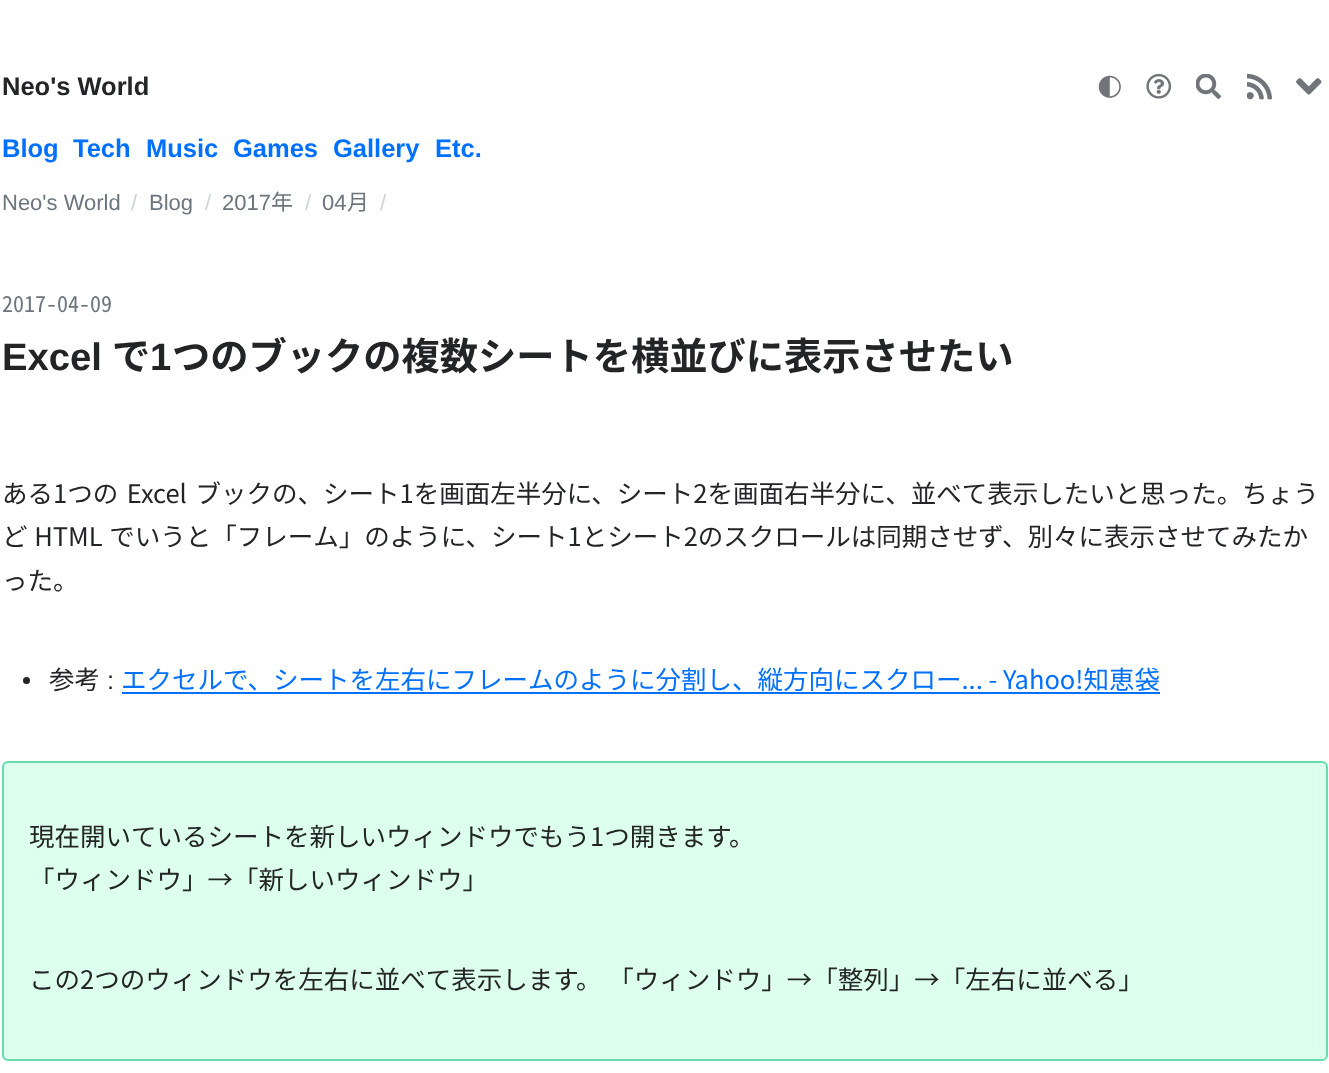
<!DOCTYPE html>
<meta charset="utf-8">
<style>body { margin: 0 } canvas { display: block }</style>
<canvas id="canvas" width="1329" height="1073"></canvas>
<img id="img1" src="img_01.png" hidden>
<img id="img2" src="img_02.png" hidden>
<img id="img3" src="img_03.png" hidden>
<img id="img4" src="img_04.png" hidden>
<img id="img5" src="img_05.png" hidden>
<script>
window.onload = function () {
	const canvas = document.getElementById("canvas");
	const ctx = canvas.getContext("2d");
	ctx.miterLimit = 4;
	ctx.fontKerning = "normal";
	function txt(s, x, y) {
		ctx.fillText(s, x, y);
	}
	function fill(x, y, w, h) {
		ctx.fillRect(x, y, w, h);
	}
	function img(id, x, y, w, h) {
		ctx.drawImage(document.getElementById(id), x, y, w, h);
	}

	ctx.fillStyle = "#FFFFFF";
	fill(0, 0, 1329, 1073);
	img("img1", 1098, 75, 23, 23);
	img("img2", 1146, 74, 26, 25);
	img("img3", 1196, 74, 25, 25);
	img("img4", 1247, 73, 25, 27);
	img("img5", 1296, 78, 26, 17);
	ctx.fillStyle = "#232425";
	ctx.beginPath();
	ctx.arc(26.5, 680.5, 3.5, 0, Math.PI * 2);
	ctx.fill();
	ctx.fillStyle = "#0070FF";
	fill(122, 692, 1038, 2);
	ctx.fillStyle = "#DDFFEE";
	ctx.beginPath();
	ctx.roundRect(3, 762, 1324, 298, 5);
	ctx.fill();
	ctx.strokeStyle = "#66DDAA";
	ctx.lineWidth = 2;
	ctx.stroke();
	ctx.font = "bold 25.5px Liberation Sans";
	ctx.fillStyle = "#232425";
	txt("Neo's World", 2, 95);
	ctx.fillStyle = "#0070FF";
	txt("Blog", 2, 157);
	txt("Tech", 73, 157);
	txt("Music", 146, 157);
	txt("Games", 233, 157);
	txt("Gallery", 333, 157);
	txt("Etc.", 435, 157);
	ctx.font = "22px Liberation Sans";
	ctx.fillStyle = "#6C757D";
	txt("Neo's World", 2, 210);
	ctx.fillStyle = "#CED4DA";
	txt("/", 131, 210);
	ctx.fillStyle = "#6C757D";
	txt("Blog", 149, 210);
	ctx.fillStyle = "#CED4DA";
	txt("/", 205, 210);
	ctx.fillStyle = "#6C757D";
	txt("2017", 222, 210);
	ctx.font = "22px Noto Sans JP";
	txt("年", 271, 210);
	ctx.font = "22px Liberation Sans";
	ctx.fillStyle = "#CED4DA";
	txt("/", 305, 210);
	ctx.fillStyle = "#6C757D";
	txt("04", 322, 210);
	ctx.font = "22px Noto Sans JP";
	txt("月", 347, 210);
	ctx.font = "22px Liberation Sans";
	ctx.fillStyle = "#CED4DA";
	txt("/", 380, 210);
	ctx.font = "22px Noto Sans Mono CJK JP";
	ctx.fillStyle = "#6C757D";
	txt("2017-04-09", 2, 312);
	ctx.font = "bold 38.25px Liberation Sans";
	ctx.fillStyle = "#232425";
	txt("Excel", 2, 370);
	ctx.font = "bold 38.25px Noto Sans JP";
	txt("で", 112, 370);
	ctx.font = "bold 38.25px Liberation Sans";
	txt("1", 150, 370);
	ctx.font = "bold 38.25px Noto Sans JP";
	txt("つのブックの複数シートを横並びに表示させたい", 172, 370);
	ctx.wordSpacing = "3px";
	ctx.font = "25.5px Noto Sans JP";
	txt("ある1つの Excel ブックの、シート1を画面左半分に、シート2を画面右半分に、並べて表示したいと思った。ちょう", 2, 503);
	ctx.wordSpacing = "1px";
	txt("ど HTML でいうと「フレーム」のように、シート1とシート2のスクロールは同期させず、別々に表示させてみたか", 2, 546);
	ctx.wordSpacing = "0px";
	txt("った。", 2, 590);
	txt("参考", 49, 689);
	ctx.font = "25.5px Liberation Sans";
	txt(":", 107, 689);
	ctx.font = "25.5px Noto Sans JP";
	ctx.fillStyle = "#0070FF";
	txt("エクセルで、シートを左右にフレームのように分割し、縦方向にスクロー... - Yahoo!知恵袋", 121, 689);
	ctx.fillStyle = "#232425";
	txt("現在開いているシートを新しいウィンドウでもう1つ開きます。", 29, 846);
	txt("「ウィンドウ」→「新しいウィンドウ」", 29, 889);
	ctx.wordSpacing = "1px";
	txt("この2つのウィンドウを左右に並べて表示します。 「ウィンドウ」→「整列」→「左右に並べる」", 29, 989);
};
</script>
